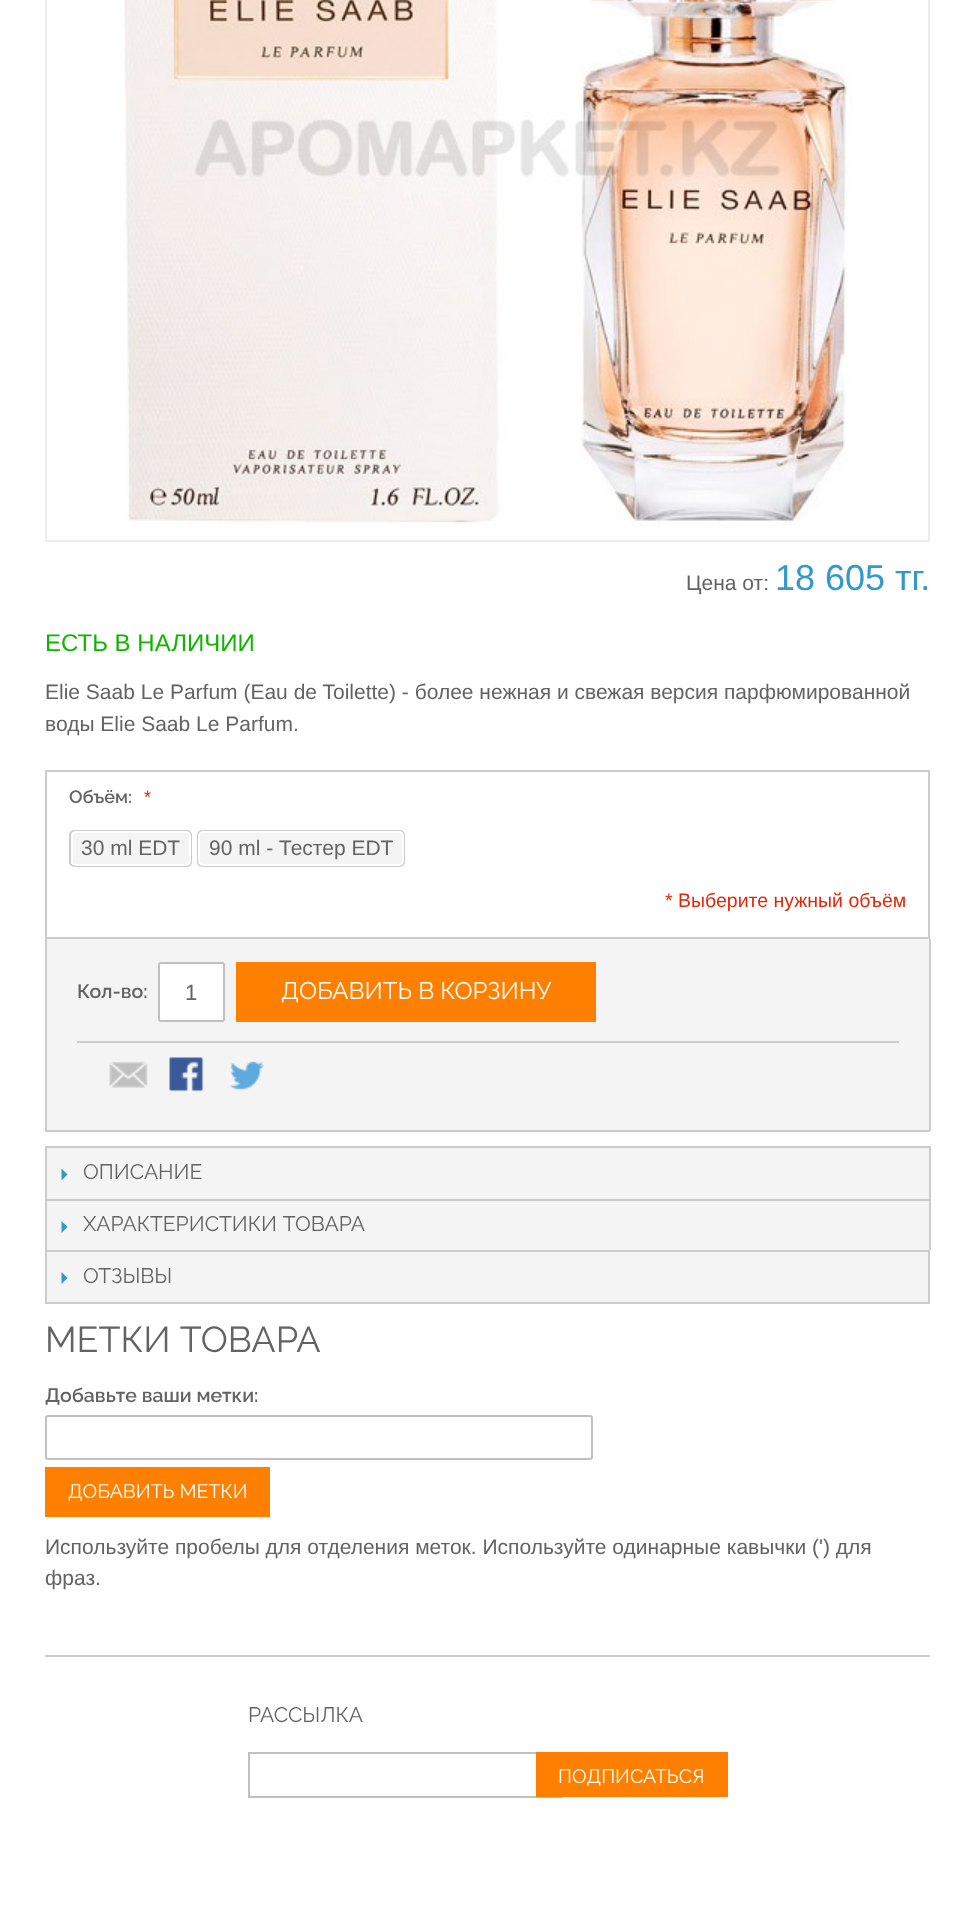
<!DOCTYPE html>
<meta charset="utf-8">
<style>body { margin: 0 } canvas { display: block }</style>
<canvas id="canvas" width="975" height="1924"></canvas>
<img id="img1" src="img_01.png" hidden>
<img id="img2" src="img_02.png" hidden>
<img id="img3" src="img_03.png" hidden>
<img id="img4" src="img_04.png" hidden>
<script>
window.onload = function () {
	const canvas = document.getElementById("canvas");
	const ctx = canvas.getContext("2d");
	ctx.miterLimit = 4;
	ctx.fontKerning = "normal";
	function txt(s, x, y) {
		ctx.fillText(s, x, y);
	}
	function fill(x, y, w, h) {
		ctx.fillRect(x, y, w, h);
	}
	function img(id, x, y, w, h) {
		ctx.drawImage(document.getElementById(id), x, y, w, h);
	}

	ctx.fillStyle = "#FFFFFF";
	fill(0, 0, 975, 1924);
	ctx.strokeStyle = "#EDEDED";
	ctx.lineWidth = 2;
	ctx.strokeRect(46, -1, 883, 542);
	img("img1", 124, 0, 729, 525);
	ctx.strokeStyle = "#CCCCCC";
	ctx.strokeRect(46, 771, 883, 167);
	ctx.beginPath();
	ctx.roundRect(70, 831, 121, 35, 4);
	ctx.stroke();
	ctx.fillStyle = "#F4F4F4";
	ctx.beginPath();
	ctx.roundRect(72, 832, 118, 33, 4);
	ctx.fill();
	ctx.strokeStyle = "#FFFFFF";
	ctx.stroke();
	ctx.beginPath();
	ctx.roundRect(198, 831, 206, 35, 4);
	ctx.strokeStyle = "#CCCCCC";
	ctx.stroke();
	ctx.beginPath();
	ctx.roundRect(199, 832, 204, 33, 4);
	ctx.fill();
	ctx.strokeStyle = "#FFFFFF";
	ctx.stroke();
	fill(47, 939, 882, 191);
	ctx.fillStyle = "#CCCCCC";
	fill(929, 939, 2, 192);
	fill(45, 1130, 885, 2);
	fill(45, 939, 2, 192);
	fill(77, 1041, 822, 2);
	ctx.fillStyle = "#FFFFFF";
	ctx.beginPath();
	ctx.roundRect(159, 963, 65, 58, 2);
	ctx.fill();
	ctx.strokeStyle = "#C0C0C0";
	ctx.stroke();
	ctx.fillStyle = "#FF8000";
	fill(236, 962, 360, 60);
	img("img2", 109, 1061, 39, 27);
	img("img3", 169, 1057, 35, 35);
	img("img4", 229, 1061, 36, 29);
	ctx.fillStyle = "#F4F4F4";
	fill(47, 1148, 882, 51);
	ctx.fillStyle = "#CCCCCC";
	fill(45, 1146, 885, 2);
	fill(929, 1146, 2, 53);
	fill(45, 1146, 2, 53);
	ctx.fillStyle = "#3399CC";
	ctx.beginPath();
	ctx.moveTo(61.5, 1180.5);
	ctx.lineTo(61.5, 1168.5);
	ctx.lineTo(67.5, 1174.5);
	ctx.closePath();
	ctx.fill();
	ctx.fillStyle = "#F4F4F4";
	fill(47, 1201, 882, 49);
	ctx.fillStyle = "#CCCCCC";
	fill(45, 1199, 885, 2);
	fill(929, 1199, 2, 51);
	fill(45, 1199, 2, 51);
	ctx.fillStyle = "#3399CC";
	ctx.beginPath();
	ctx.moveTo(61.5, 1233);
	ctx.lineTo(61.5, 1221);
	ctx.lineTo(67.5, 1227);
	ctx.closePath();
	ctx.fill();
	ctx.fillStyle = "#F4F4F4";
	ctx.beginPath();
	ctx.rect(46, 1251, 883, 52);
	ctx.fill();
	ctx.strokeStyle = "#CCCCCC";
	ctx.stroke();
	ctx.fillStyle = "#3399CC";
	ctx.beginPath();
	ctx.moveTo(61.5, 1284);
	ctx.lineTo(61.5, 1272);
	ctx.lineTo(67.5, 1278);
	ctx.closePath();
	ctx.fill();
	ctx.beginPath();
	ctx.roundRect(46, 1416, 546, 43, 2);
	ctx.strokeStyle = "#C0C0C0";
	ctx.stroke();
	ctx.fillStyle = "#FF8000";
	fill(45, 1467, 225, 50);
	ctx.fillStyle = "#CCCCCC";
	fill(45, 1655, 885, 2);
	ctx.fillStyle = "#C0C0C0";
	fill(248, 1752, 288, 2);
	fill(248, 1796, 315, 2);
	fill(248, 1752, 2, 45);
	ctx.fillStyle = "#FF8000";
	fill(536, 1752, 192, 45);
	ctx.font = "21px Liberation Sans";
	ctx.fillStyle = "#636363";
	txt("Цена от:", 686, 590);
	ctx.font = "36px Liberation Sans";
	ctx.fillStyle = "#3399CC";
	txt("18 605 тг.", 775, 590);
	ctx.font = "24px Liberation Sans";
	ctx.fillStyle = "#11B400";
	txt("ЕСТЬ В НАЛИЧИИ", 45, 651);
	ctx.font = "21px Liberation Sans";
	ctx.fillStyle = "#636363";
	txt("Elie Saab Le Parfum (Eau de Toilette) - более нежная и свежая версия парфюмированной", 45, 699);
	txt("воды Elie Saab Le Parfum.", 45, 731);
	ctx.font = "600 18px Raleway";
	txt("Объём:", 69, 803);
	ctx.font = "18px Liberation Sans";
	ctx.fillStyle = "#DF280A";
	txt("*", 144, 803);
	ctx.font = "21px Liberation Sans";
	ctx.fillStyle = "#636363";
	txt("30 ml EDT", 81, 855);
	txt("90 ml - Тестер EDT", 209, 855);
	ctx.font = "19.5px Liberation Sans";
	ctx.fillStyle = "#DF280A";
	txt("* Выберите нужный объём", 665, 907);
	ctx.font = "600 19.5px Raleway";
	ctx.fillStyle = "#636363";
	txt("Кол-во:", 77, 998);
	ctx.font = "22px Liberation Sans";
	txt("1", 185, 1000);
	ctx.font = "24px Raleway";
	ctx.fillStyle = "#FFFFFF";
	txt("ДОБАВИТЬ В КОРЗИНУ", 281, 999);
	ctx.font = "21px Raleway";
	ctx.fillStyle = "#636363";
	txt("ОПИСАНИЕ", 83, 1179);
	ctx.wordSpacing = "1px";
	txt("ХАРАКТЕРИСТИКИ ТОВАРА", 83, 1231);
	ctx.wordSpacing = "0px";
	txt("ОТЗЫВЫ", 83, 1283);
	ctx.wordSpacing = "1px";
	ctx.font = "36px Raleway";
	txt("МЕТКИ ТОВАРА", 45, 1352);
	ctx.wordSpacing = "0px";
	ctx.font = "600 19.5px Raleway";
	txt("Добавьте ваши метки:", 45, 1402);
	ctx.font = "19.5px Raleway";
	ctx.fillStyle = "#FFFFFF";
	txt("ДОБАВИТЬ МЕТКИ", 68, 1498);
	ctx.font = "21px Liberation Sans";
	ctx.fillStyle = "#636363";
	txt("Используйте пробелы для отделения меток. Используйте одинарные кавычки (') для", 45, 1554);
	txt("фраз.", 45, 1585);
	ctx.font = "21px Raleway";
	txt("РАССЫЛКА", 248, 1722);
	ctx.font = "19.5px Raleway";
	ctx.fillStyle = "#FFFFFF";
	txt("ПОДПИСАТЬСЯ", 558, 1783);
};
</script>
